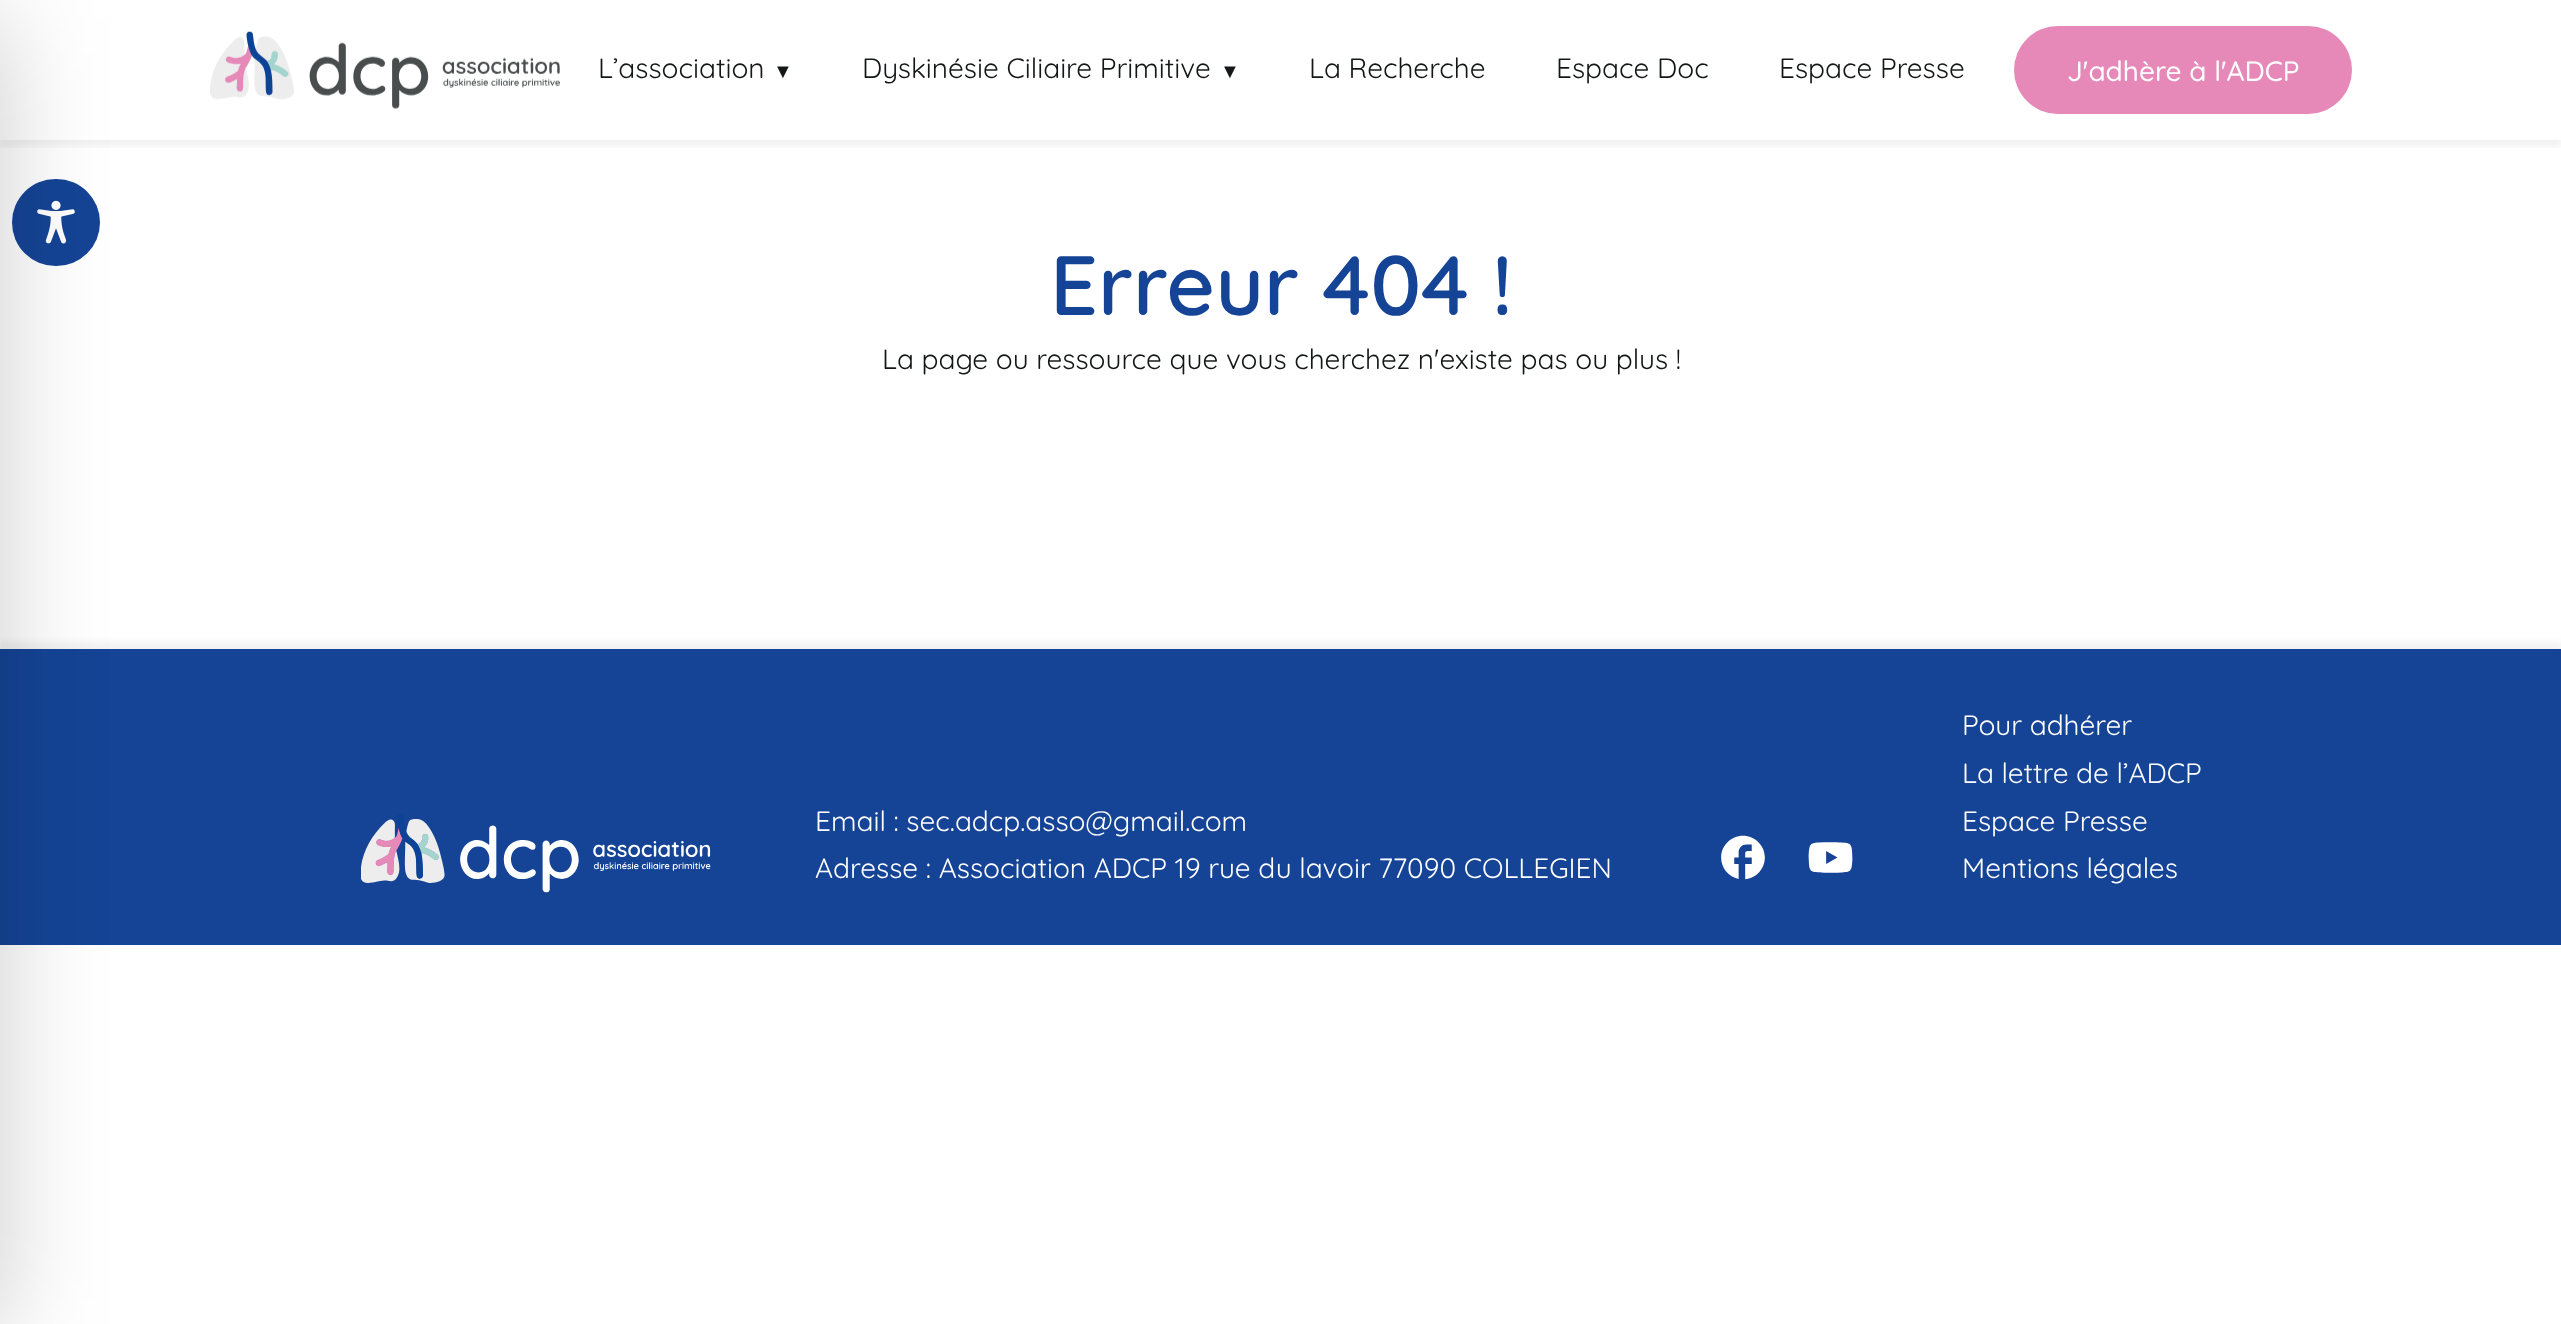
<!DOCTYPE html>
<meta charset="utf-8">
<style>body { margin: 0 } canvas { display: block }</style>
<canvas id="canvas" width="2561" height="1324"></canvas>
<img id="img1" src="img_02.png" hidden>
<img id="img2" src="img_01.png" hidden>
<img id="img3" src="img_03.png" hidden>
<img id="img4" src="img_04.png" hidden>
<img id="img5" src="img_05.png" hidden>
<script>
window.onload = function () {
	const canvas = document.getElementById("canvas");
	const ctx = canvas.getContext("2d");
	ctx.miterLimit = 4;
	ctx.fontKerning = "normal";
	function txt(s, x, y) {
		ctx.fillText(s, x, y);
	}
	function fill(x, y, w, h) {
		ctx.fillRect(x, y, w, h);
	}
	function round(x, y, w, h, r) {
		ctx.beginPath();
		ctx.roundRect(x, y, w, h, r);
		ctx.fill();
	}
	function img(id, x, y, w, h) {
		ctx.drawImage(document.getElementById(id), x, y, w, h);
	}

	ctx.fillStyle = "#FFFFFF";
	fill(0, 0, 2561, 1324);
	ctx.fillStyle = "#154496";
	round(12, 179, 88, 87, 43.5);
	img("img1", 37, 200, 38, 44);
	ctx.fillStyle = "rgba(0, 0, 0, 0.05)";
	ctx.filter = "blur(3.5px)";
	ctx.beginPath();
	ctx.rect(0, 642, 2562, 296);
	ctx.fill();
	ctx.filter = "none";
	ctx.fillStyle = "#154496";
	fill(0, 649, 2561, 296);
	ctx.fillStyle = "rgba(0, 0, 0, 0.2)";
	ctx.filter = "blur(52.5px)";
	ctx.beginPath();
	ctx.rect(-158, 18, 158, 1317);
	ctx.fill();
	ctx.filter = "none";
	ctx.save();
	ctx.beginPath();
	ctx.rect(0, 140, 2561, 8);
	ctx.clip();
	ctx.fillStyle = "rgba(0, 0, 0, 0.05)";
	ctx.filter = "blur(3.5px)";
	ctx.beginPath();
	ctx.rect(0, 7, 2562, 140);
	ctx.fill();
	ctx.filter = "none";
	ctx.restore();
	img("img2", 210, 31, 350, 78);
	ctx.fillStyle = "#E689B8";
	round(2014, 26, 338, 88, 44);
	img("img3", 361, 814, 350, 79);
	img("img4", 1721, 835, 44, 45);
	img("img5", 1808, 842, 45, 31);
	ctx.font = "28px Quicksand";
	ctx.fillStyle = "#141617";
	txt("L’association", 598, 78);
	ctx.font = "20px Liberation Sans";
	txt("▼", 773, 78);
	ctx.font = "28px Quicksand";
	txt("Dyskinésie Ciliaire Primitive", 862, 78);
	ctx.font = "20px Liberation Sans";
	txt("▼", 1220, 78);
	ctx.font = "28px Quicksand";
	txt("La Recherche", 1309, 78);
	txt("Espace Doc", 1556, 78);
	txt("Espace Presse", 1779, 78);
	ctx.font = "500 28px Quicksand";
	ctx.fillStyle = "#FFFFFF";
	txt("J'adhère à l'ADCP", 2067, 81);
	ctx.font = "600 84px Quicksand";
	ctx.fillStyle = "#154496";
	txt("Erreur 404 !", 1050, 315);
	ctx.font = "28px Quicksand";
	ctx.fillStyle = "#141617";
	txt("La page ou ressource que vous cherchez n'existe pas ou plus !", 882, 369);
	ctx.fillStyle = "#FFFFFF";
	txt("Email : sec.adcp.asso@gmail.com", 815, 831);
	txt("Adresse : Association ADCP 19 rue du lavoir 77090 COLLEGIEN", 815, 878);
	txt("Pour adhérer", 1962, 735);
	txt("La lettre de l’ADCP", 1962, 783);
	txt("Espace Presse", 1962, 831);
	txt("Mentions légales", 1962, 878);
};
</script>
